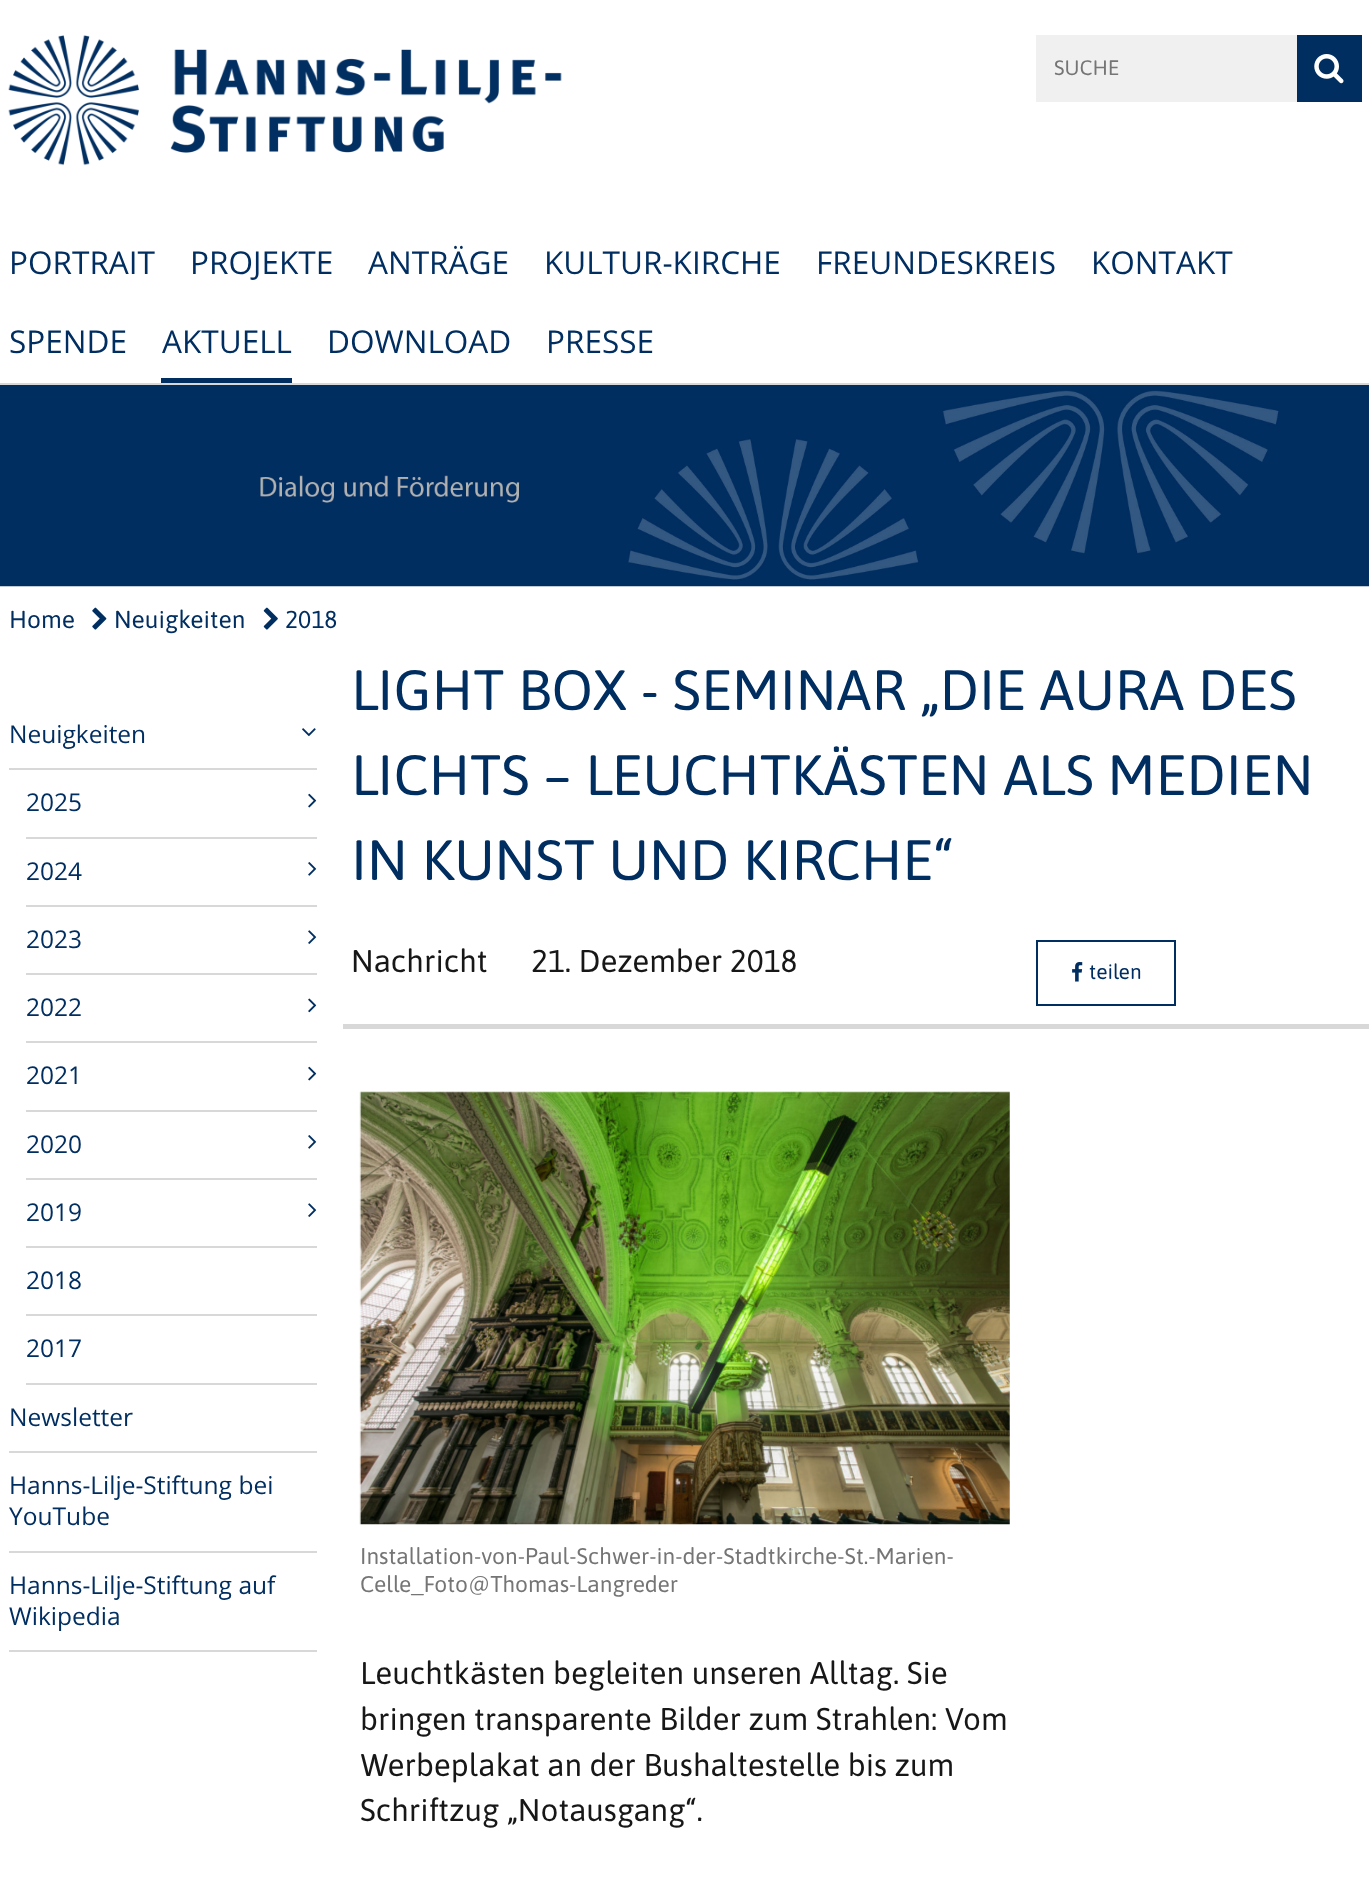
<!DOCTYPE html>
<meta charset="utf-8">
<style>body { margin: 0 } canvas { display: block }</style>
<canvas id="canvas" width="1369" height="1894"></canvas>
<img id="img1" src="img_01.png" hidden>
<img id="img2" src="img_02.png" hidden>
<img id="img3" src="img_03.png" hidden>
<img id="img4" src="img_04.png" hidden>
<img id="img5" src="img_05.png" hidden>
<img id="img6" src="img_06.png" hidden>
<img id="img7" src="img_07.png" hidden>
<img id="img8" src="img_08.png" hidden>
<img id="img9" src="img_09.png" hidden>
<img id="img10" src="img_10.png" hidden>
<img id="img11" src="img_11.png" hidden>
<img id="img12" src="img_12.png" hidden>
<script>
window.onload = function () {
	const canvas = document.getElementById("canvas");
	const ctx = canvas.getContext("2d");
	ctx.miterLimit = 4;
	ctx.fontKerning = "normal";
	function txt(s, x, y) {
		ctx.fillText(s, x, y);
	}
	function fill(x, y, w, h) {
		ctx.fillRect(x, y, w, h);
	}
	function img(id, x, y, w, h) {
		ctx.drawImage(document.getElementById(id), x, y, w, h);
	}

	ctx.fillStyle = "#FFFFFF";
	fill(0, 0, 1369, 1894);
	ctx.fillStyle = "#D8D8D8";
	fill(0, 383, 1369, 2);
	img("img1", 8, 35, 554, 131);
	ctx.fillStyle = "#F0F0F0";
	fill(1036, 35, 261, 67);
	ctx.fillStyle = "#002E61";
	fill(1297, 35, 65, 67);
	img("img2", 1314, 54, 30, 30);
	fill(161, 378, 131, 5);
	img("img3", 0, 385, 1369, 202);
	img("img4", 92, 607, 15, 23);
	img("img5", 263, 607, 15, 23);
	ctx.fillStyle = "#D8D8D8";
	fill(9, 768, 308, 2);
	img("img6", 302, 728, 14, 9);
	fill(26, 837, 291, 2);
	img("img7", 308, 793, 9, 15);
	fill(26, 905, 291, 2);
	img("img8", 308, 862, 9, 14);
	fill(26, 973, 291, 2);
	img("img9", 308, 930, 9, 14);
	fill(26, 1041, 291, 2);
	img("img10", 308, 998, 9, 15);
	fill(26, 1110, 291, 2);
	img("img7", 308, 1066, 9, 15);
	fill(26, 1178, 291, 2);
	img("img8", 308, 1135, 9, 14);
	fill(26, 1246, 291, 2);
	img("img9", 308, 1203, 9, 14);
	fill(26, 1314, 291, 2);
	fill(26, 1383, 291, 2);
	fill(9, 1451, 308, 2);
	fill(9, 1551, 308, 2);
	fill(9, 1650, 308, 2);
	fill(343, 1024, 1026, 5);
	ctx.strokeStyle = "#002E61";
	ctx.lineWidth = 2;
	ctx.strokeRect(1037, 941, 138, 64);
	img("img11", 1072, 962, 11, 20);
	img("img12", 359, 1091, 651, 434);
	ctx.font = "21px Asap";
	ctx.fillStyle = "#757575";
	txt("SUCHE", 1054, 75);
	ctx.font = "31.5px Open Sans";
	ctx.fillStyle = "#002E61";
	txt("PORTRAIT", 9, 274);
	txt("PROJEKTE", 190, 274);
	txt("ANTRÄGE", 368, 274);
	txt("KULTUR-KIRCHE", 544, 274);
	txt("FREUNDESKREIS", 816, 274);
	txt("KONTAKT", 1091, 274);
	txt("SPENDE", 9, 353);
	txt("AKTUELL", 162, 353);
	txt("DOWNLOAD", 327, 353);
	txt("PRESSE", 546, 353);
	ctx.font = "24.5px Asap";
	txt("Home", 9, 628);
	txt("Neuigkeiten", 114, 628);
	txt("2018", 285, 628);
	ctx.font = "24.5px Open Sans";
	txt("Neuigkeiten", 9, 743);
	txt("2025", 26, 811);
	txt("2024", 26, 880);
	txt("2023", 26, 948);
	txt("2022", 26, 1016);
	txt("2021", 26, 1084);
	txt("2020", 26, 1153);
	txt("2019", 26, 1221);
	txt("2018", 26, 1289);
	txt("2017", 26, 1357);
	txt("Newsletter", 9, 1426);
	txt("Hanns-Lilje-Stiftung bei", 9, 1494);
	txt("YouTube", 9, 1525);
	txt("Hanns-Lilje-Stiftung auf", 9, 1594);
	txt("Wikipedia", 9, 1625);
	ctx.font = "56.75px Asap";
	txt("LIGHT BOX - SEMINAR „DIE AURA DES", 351, 710);
	txt("LICHTS – LEUCHTKÄSTEN ALS MEDIEN", 351, 795);
	txt("IN KUNST UND KIRCHE“", 351, 880);
	ctx.font = "31.5px Asap";
	ctx.fillStyle = "#171717";
	txt("Nachricht", 351, 972);
	txt("21. Dezember 2018", 531, 972);
	ctx.font = "21px Asap";
	ctx.fillStyle = "#002E61";
	txt("teilen", 1089, 979);
	ctx.font = "22.75px Asap";
	ctx.fillStyle = "#757575";
	txt("Installation-von-Paul-Schwer-in-der-Stadtkirche-St.-Marien-", 360, 1564);
	txt("Celle_Foto@Thomas-Langreder", 360, 1592);
	ctx.font = "31.5px Asap";
	ctx.fillStyle = "#171717";
	txt("Leuchtkästen begleiten unseren Alltag. Sie", 360, 1684);
	txt("bringen transparente Bilder zum Strahlen: Vom", 360, 1730);
	txt("Werbeplakat an der Bushaltestelle bis zum", 360, 1776);
	txt("Schriftzug „Notausgang“.", 360, 1821);
};
</script>
